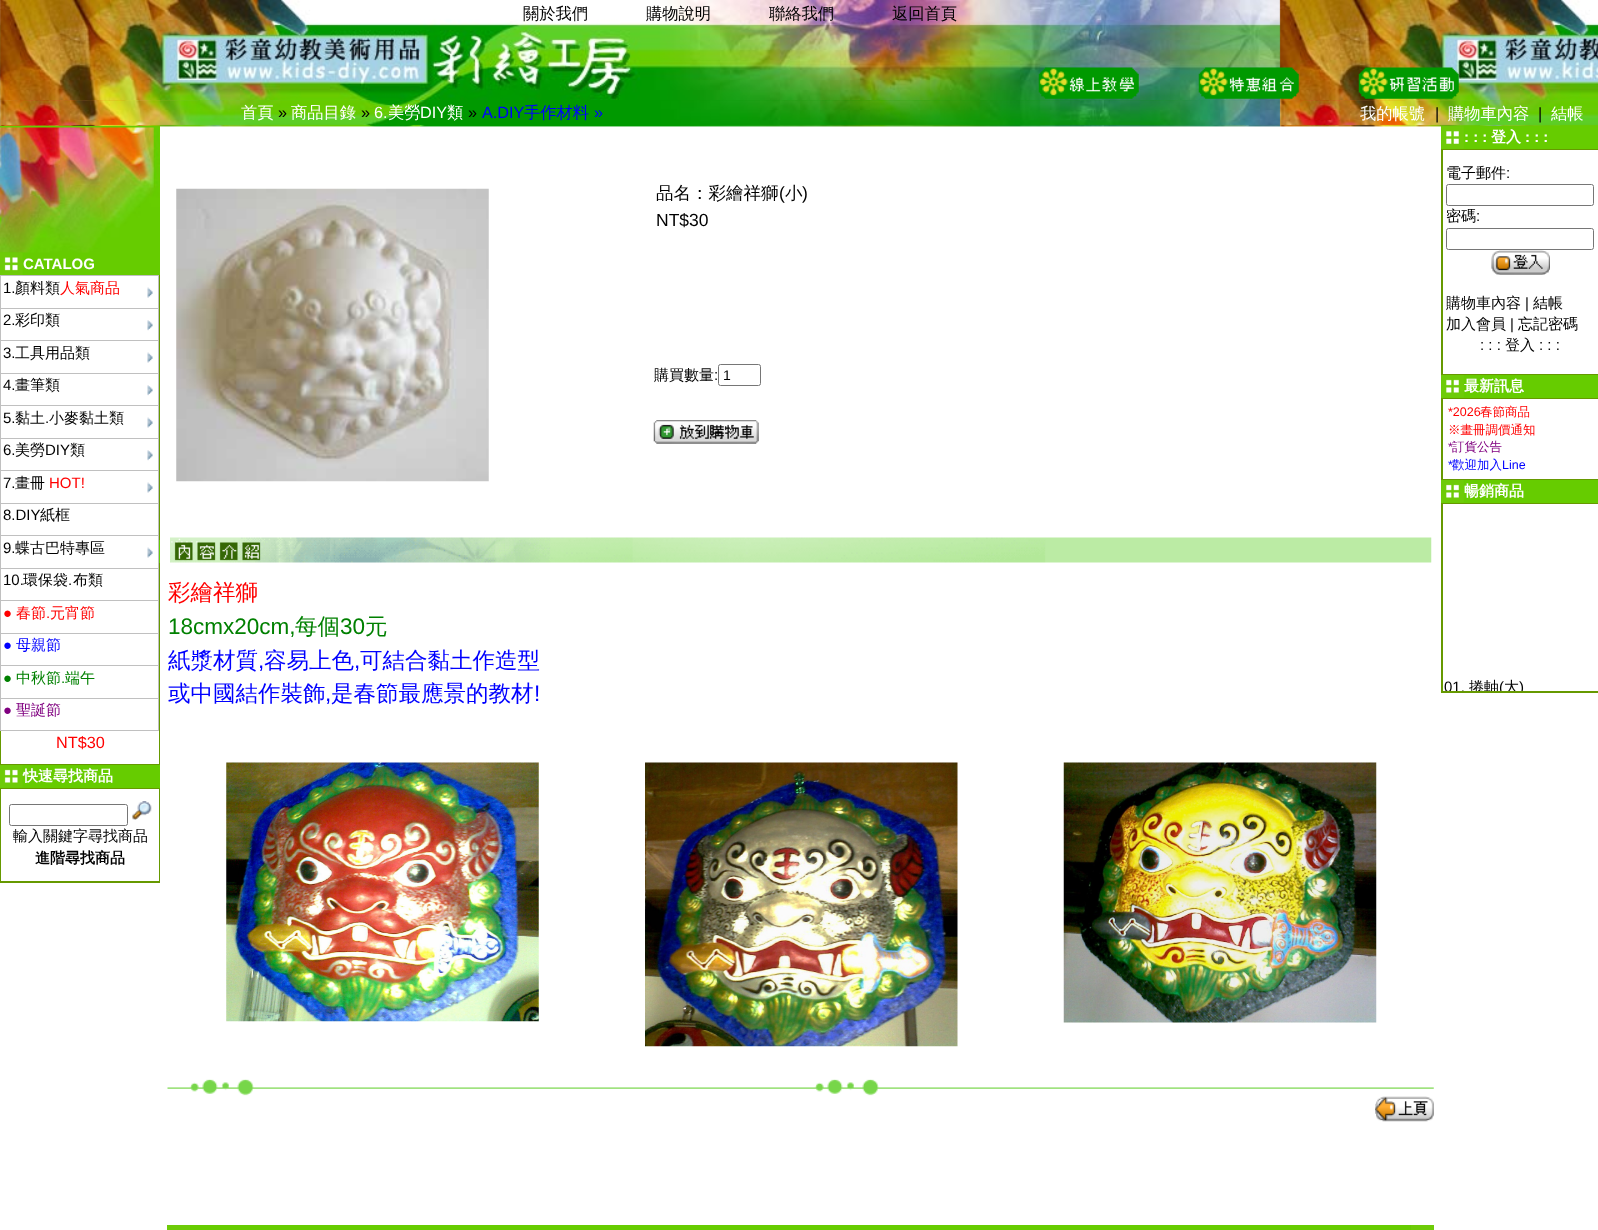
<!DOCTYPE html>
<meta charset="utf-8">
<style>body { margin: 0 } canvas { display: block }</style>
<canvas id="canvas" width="1598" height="1230"></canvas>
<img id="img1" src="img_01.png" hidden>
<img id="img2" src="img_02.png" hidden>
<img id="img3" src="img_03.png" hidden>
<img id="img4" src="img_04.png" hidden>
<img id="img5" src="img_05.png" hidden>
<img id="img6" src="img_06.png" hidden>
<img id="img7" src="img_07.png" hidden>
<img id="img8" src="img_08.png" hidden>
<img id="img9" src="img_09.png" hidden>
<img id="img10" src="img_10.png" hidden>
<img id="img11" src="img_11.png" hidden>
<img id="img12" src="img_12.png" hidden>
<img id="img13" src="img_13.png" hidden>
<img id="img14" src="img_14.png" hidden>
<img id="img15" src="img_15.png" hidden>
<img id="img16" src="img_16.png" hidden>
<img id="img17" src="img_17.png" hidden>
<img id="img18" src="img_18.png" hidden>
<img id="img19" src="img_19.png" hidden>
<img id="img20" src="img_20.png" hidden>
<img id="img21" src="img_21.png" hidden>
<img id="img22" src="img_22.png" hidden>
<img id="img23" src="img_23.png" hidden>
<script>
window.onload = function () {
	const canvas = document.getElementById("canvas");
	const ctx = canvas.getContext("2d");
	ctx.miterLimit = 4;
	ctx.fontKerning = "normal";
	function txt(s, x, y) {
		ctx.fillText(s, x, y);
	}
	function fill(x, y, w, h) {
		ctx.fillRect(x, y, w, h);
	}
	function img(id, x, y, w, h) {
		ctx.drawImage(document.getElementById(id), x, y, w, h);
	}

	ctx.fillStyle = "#FFFFFF";
	fill(0, 0, 1598, 1230);
	img("img1", 0, 0, 1598, 100);
	img("img2", 1038, 67, 101, 32);
	img("img3", 1198, 67, 101, 32);
	img("img4", 1358, 67, 101, 32);
	img("img5", 0, 100, 1598, 27);
	ctx.fillStyle = "#66CC00";
	fill(0, 126, 160, 127);
	img("img6", 0, 127, 160, 126);
	fill(22, 253, 138, 22);
	img("img7", 0, 252, 23, 23);
	ctx.fillStyle = "#669900";
	fill(159, 275, 1, 265);
	ctx.fillStyle = "#66CC00";
	fill(159, 540, 1, 23);
	ctx.fillStyle = "#669900";
	fill(0, 563, 160, 202);
	ctx.fillStyle = "#FFFFFF";
	fill(1, 731, 158, 33);
	ctx.fillStyle = "#66CC00";
	fill(0, 765, 160, 23);
	img("img8", 0, 765, 23, 23);
	ctx.fillStyle = "#669900";
	fill(0, 788, 160, 95);
	ctx.fillStyle = "#FFFFFF";
	fill(1, 789, 158, 92);
	ctx.beginPath();
	ctx.roundRect(9.5, 804.5, 118, 21, 2);
	ctx.strokeStyle = "#767676";
	ctx.stroke();
	img("img9", 132, 801, 20, 19);
	img("img10", 176, 188, 313, 294);
	ctx.beginPath();
	ctx.roundRect(718.5, 364.5, 42, 21, 2);
	ctx.stroke();
	img("img11", 653, 420, 106, 24);
	img("img12", 170, 537, 1262, 26);
	img("img13", 226, 762, 313, 260);
	img("img14", 645, 762, 313, 285);
	img("img15", 1063, 762, 314, 261);
	img("img16", 167, 1079, 1267, 17);
	img("img17", 1375, 1096, 59, 26);
	ctx.fillStyle = "#6ECB08";
	fill(167, 1225, 23, 5);
	ctx.fillStyle = "#66CC00";
	fill(190, 1225, 1221, 5);
	ctx.fillStyle = "#6ECB08";
	fill(1411, 1225, 23, 5);
	ctx.fillStyle = "#66CC00";
	fill(1441, 126, 157, 23);
	img("img18", 1441, 126, 23, 23);
	ctx.fillStyle = "#669900";
	fill(1441, 149, 157, 226);
	ctx.fillStyle = "#FFFFFF";
	fill(1443, 150, 155, 224);
	ctx.beginPath();
	ctx.roundRect(1446.5, 184.5, 147, 21, 2);
	ctx.stroke();
	ctx.beginPath();
	ctx.roundRect(1446.5, 228.5, 147, 21, 2);
	ctx.stroke();
	img("img19", 1491, 250, 59, 25);
	ctx.fillStyle = "#66CC00";
	fill(1441, 375, 157, 23);
	img("img20", 1441, 375, 23, 23);
	ctx.fillStyle = "#669900";
	fill(1441, 398, 157, 82);
	ctx.fillStyle = "#FFFFFF";
	fill(1443, 399, 155, 80);
	ctx.fillStyle = "#66CC00";
	fill(1441, 480, 157, 23);
	img("img20", 1441, 480, 23, 23);
	ctx.fillStyle = "#669900";
	fill(1441, 503, 157, 190);
	ctx.fillStyle = "#FFFFFF";
	fill(1443, 504, 155, 187);
	ctx.fillStyle = "#C0C0C0";
	fill(0, 275, 159, 456);
	ctx.fillStyle = "#FFFFFF";
	fill(1, 276, 157, 32);
	img("img21", 147, 287, 6, 11);
	fill(1, 309, 157, 31);
	img("img22", 147, 320, 6, 11);
	fill(1, 341, 157, 32);
	img("img23", 147, 352, 6, 11);
	fill(1, 374, 157, 31);
	img("img22", 147, 385, 6, 11);
	fill(1, 406, 157, 32);
	img("img23", 147, 417, 6, 11);
	fill(1, 439, 157, 31);
	img("img22", 147, 450, 6, 11);
	fill(1, 471, 157, 32);
	img("img23", 147, 482, 6, 11);
	fill(1, 504, 157, 31);
	fill(1, 536, 157, 32);
	img("img23", 147, 547, 6, 11);
	fill(1, 569, 157, 31);
	fill(1, 601, 157, 32);
	fill(1, 634, 157, 31);
	fill(1, 666, 157, 32);
	fill(1, 699, 157, 31);
	ctx.font = "500 16.25px WenQuanYi Zen Hei";
	ctx.fillStyle = "#000000";
	txt("關於我們", 523, 19);
	txt("購物說明", 646, 19);
	txt("聯絡我們", 769, 19);
	txt("返回首頁", 892, 19);
	ctx.fillStyle = "#FFFFFF";
	txt("首頁", 241, 118);
	ctx.font = "16.25px Liberation Sans";
	ctx.fillStyle = "#000000";
	txt("»", 278, 118);
	ctx.font = "500 16.25px WenQuanYi Zen Hei";
	ctx.fillStyle = "#FFFFFF";
	txt("商品目錄", 291, 118);
	ctx.font = "16.25px Liberation Sans";
	ctx.fillStyle = "#000000";
	txt("»", 361, 118);
	ctx.fillStyle = "#FFFFFF";
	txt("6.", 374, 118);
	ctx.font = "500 16.25px WenQuanYi Zen Hei";
	txt("美勞", 388, 118);
	ctx.font = "16.25px Liberation Sans";
	txt("DIY", 420, 118);
	ctx.font = "500 16.25px WenQuanYi Zen Hei";
	txt("類", 447, 118);
	ctx.font = "16.25px Liberation Sans";
	ctx.fillStyle = "#000000";
	txt("»", 468, 118);
	ctx.fillStyle = "#0000FF";
	txt("A.DIY", 482, 118);
	ctx.font = "500 16.25px WenQuanYi Zen Hei";
	txt("手作材料", 524, 118);
	ctx.font = "16.25px Liberation Sans";
	txt("»", 594, 118);
	ctx.font = "500 16.25px WenQuanYi Zen Hei";
	ctx.fillStyle = "#FFFFFF";
	txt("我的帳號", 1360, 119);
	ctx.font = "16.25px Liberation Sans";
	ctx.fillStyle = "#000000";
	txt("|", 1435, 119);
	ctx.font = "500 16.25px WenQuanYi Zen Hei";
	ctx.fillStyle = "#FFFFFF";
	txt("購物車內容", 1448, 119);
	ctx.font = "16.25px Liberation Sans";
	ctx.fillStyle = "#000000";
	txt("|", 1538, 119);
	ctx.font = "500 16.25px WenQuanYi Zen Hei";
	ctx.fillStyle = "#FFFFFF";
	txt("結帳", 1551, 119);
	ctx.font = "bold 15px Liberation Sans";
	txt("CATALOG", 23, 269);
	ctx.font = "16.25px Liberation Sans";
	ctx.fillStyle = "#FF0000";
	txt("NT$30", 56, 748);
	ctx.font = "bold 15px WenQuanYi Zen Hei";
	ctx.fillStyle = "#FFFFFF";
	txt("快速尋找商品", 23, 781);
	ctx.font = "500 15px WenQuanYi Zen Hei";
	ctx.fillStyle = "#000000";
	txt("輸入關鍵字尋找商品", 13, 841);
	ctx.font = "bold 15px WenQuanYi Zen Hei";
	txt("進階尋找商品", 35, 863);
	ctx.font = "500 17.5px WenQuanYi Zen Hei";
	txt("品名：彩繪祥獅", 656, 199);
	ctx.font = "17.5px Liberation Sans";
	txt("(", 779, 199);
	ctx.font = "500 17.5px WenQuanYi Zen Hei";
	txt("小", 785, 199);
	ctx.font = "17.5px Liberation Sans";
	txt(")", 802, 199);
	txt("NT$30", 656, 226);
	ctx.font = "500 15px WenQuanYi Zen Hei";
	txt("購買數量", 654, 380);
	ctx.font = "15px Liberation Sans";
	txt(":", 714, 380);
	ctx.font = "14px Liberation Sans";
	txt("1", 723, 380);
	ctx.font = "500 22.5px WenQuanYi Zen Hei";
	ctx.fillStyle = "#FF0000";
	txt("彩繪祥獅", 168, 600);
	ctx.font = "22.5px Liberation Sans";
	ctx.fillStyle = "#008000";
	txt("18cmx20cm,", 168, 634);
	ctx.font = "500 22.5px WenQuanYi Zen Hei";
	txt("每個", 295, 634);
	ctx.font = "22.5px Liberation Sans";
	txt("30", 340, 634);
	ctx.font = "500 22.5px WenQuanYi Zen Hei";
	txt("元", 365, 634);
	ctx.fillStyle = "#0000FF";
	txt("紙漿材質", 168, 668);
	ctx.font = "22.5px Liberation Sans";
	txt(",", 258, 668);
	ctx.font = "500 22.5px WenQuanYi Zen Hei";
	txt("容易上色", 264, 668);
	ctx.font = "22.5px Liberation Sans";
	txt(",", 354, 668);
	ctx.font = "500 22.5px WenQuanYi Zen Hei";
	txt("可結合黏土作造型", 360, 668);
	txt("或中國結作裝飾", 168, 701);
	ctx.font = "22.5px Liberation Sans";
	txt(",", 325, 701);
	ctx.font = "500 22.5px WenQuanYi Zen Hei";
	txt("是春節最應景的教材", 331, 701);
	ctx.font = "22.5px Liberation Sans";
	txt("!", 534, 701);
	ctx.font = "bold 15px Liberation Sans";
	ctx.fillStyle = "#FFFFFF";
	txt(": : :", 1464, 142);
	ctx.font = "bold 15px WenQuanYi Zen Hei";
	txt("登入", 1491, 142);
	ctx.font = "bold 15px Liberation Sans";
	txt(": : :", 1525, 142);
	ctx.font = "500 15px WenQuanYi Zen Hei";
	ctx.fillStyle = "#000000";
	txt("電子郵件", 1446, 178);
	ctx.font = "15px Liberation Sans";
	txt(":", 1506, 178);
	ctx.font = "500 15px WenQuanYi Zen Hei";
	txt("密碼", 1446, 221);
	ctx.font = "15px Liberation Sans";
	txt(":", 1476, 221);
	ctx.font = "500 15px WenQuanYi Zen Hei";
	txt("購物車內容", 1446, 308);
	ctx.font = "15px Liberation Sans";
	txt("|", 1525, 308);
	ctx.font = "500 15px WenQuanYi Zen Hei";
	txt("結帳", 1533, 308);
	txt("加入會員", 1446, 329);
	ctx.font = "15px Liberation Sans";
	txt("|", 1510, 329);
	ctx.font = "500 15px WenQuanYi Zen Hei";
	txt("忘記密碼", 1518, 329);
	ctx.font = "15px Liberation Sans";
	txt(": : :", 1480, 350);
	ctx.font = "500 15px WenQuanYi Zen Hei";
	txt("登入", 1505, 350);
	ctx.font = "15px Liberation Sans";
	txt(": : :", 1539, 350);
	ctx.font = "bold 15px WenQuanYi Zen Hei";
	ctx.fillStyle = "#FFFFFF";
	txt("最新訊息", 1464, 391);
	ctx.font = "12.5px Liberation Sans";
	ctx.fillStyle = "#FF0000";
	txt("*2026", 1448, 416);
	ctx.font = "500 12.5px WenQuanYi Zen Hei";
	txt("春節商品", 1480, 416);
	txt("※畫冊調價通知", 1448, 434);
	ctx.font = "12.5px Liberation Sans";
	ctx.fillStyle = "#800080";
	txt("*", 1448, 451);
	ctx.font = "500 12.5px WenQuanYi Zen Hei";
	txt("訂貨公告", 1452, 451);
	ctx.font = "12.5px Liberation Sans";
	ctx.fillStyle = "#0000FF";
	txt("*", 1448, 469);
	ctx.font = "500 12.5px WenQuanYi Zen Hei";
	txt("歡迎加入", 1452, 469);
	ctx.font = "12.5px Liberation Sans";
	txt("Line", 1502, 469);
	ctx.font = "bold 15px WenQuanYi Zen Hei";
	ctx.fillStyle = "#FFFFFF";
	txt("暢銷商品", 1464, 496);
	ctx.save();
	ctx.beginPath();
	ctx.rect(1443, 504, 155, 187);
	ctx.clip();
	ctx.font = "15px Liberation Sans";
	ctx.fillStyle = "#000000";
	txt("01.", 1444, 692);
	ctx.font = "500 15px WenQuanYi Zen Hei";
	txt("捲軸", 1469, 692);
	ctx.font = "15px Liberation Sans";
	txt("(", 1499, 692);
	ctx.font = "500 15px WenQuanYi Zen Hei";
	txt("大", 1504, 692);
	ctx.font = "15px Liberation Sans";
	txt(")", 1519, 692);
	ctx.restore();
	ctx.font = "15px Liberation Sans";
	ctx.fillStyle = "#000000";
	txt("1.", 3, 293);
	ctx.font = "500 15px WenQuanYi Zen Hei";
	txt("顏料類", 15, 293);
	ctx.fillStyle = "#FF0000";
	txt("人氣商品", 60, 293);
	ctx.font = "15px Liberation Sans";
	ctx.fillStyle = "#000000";
	txt("2.", 3, 325);
	ctx.font = "500 15px WenQuanYi Zen Hei";
	txt("彩印類", 15, 325);
	ctx.font = "15px Liberation Sans";
	txt("3.", 3, 358);
	ctx.font = "500 15px WenQuanYi Zen Hei";
	txt("工具用品類", 15, 358);
	ctx.font = "15px Liberation Sans";
	txt("4.", 3, 390);
	ctx.font = "500 15px WenQuanYi Zen Hei";
	txt("畫筆類", 15, 390);
	ctx.font = "15px Liberation Sans";
	txt("5.", 3, 423);
	ctx.font = "500 15px WenQuanYi Zen Hei";
	txt("黏土", 15, 423);
	ctx.font = "15px Liberation Sans";
	txt(".", 45, 423);
	ctx.font = "500 15px WenQuanYi Zen Hei";
	txt("小麥黏土類", 49, 423);
	ctx.font = "15px Liberation Sans";
	txt("6.", 3, 455);
	ctx.font = "500 15px WenQuanYi Zen Hei";
	txt("美勞", 15, 455);
	ctx.font = "15px Liberation Sans";
	txt("DIY", 45, 455);
	ctx.font = "500 15px WenQuanYi Zen Hei";
	txt("類", 70, 455);
	ctx.font = "15px Liberation Sans";
	txt("7.", 3, 488);
	ctx.font = "500 15px WenQuanYi Zen Hei";
	txt("畫冊", 15, 488);
	ctx.font = "15px Liberation Sans";
	ctx.fillStyle = "#FF0000";
	txt("HOT!", 49, 488);
	ctx.fillStyle = "#000000";
	txt("8.DIY", 3, 520);
	ctx.font = "500 15px WenQuanYi Zen Hei";
	txt("紙框", 40, 520);
	ctx.font = "15px Liberation Sans";
	txt("9.", 3, 553);
	ctx.font = "500 15px WenQuanYi Zen Hei";
	txt("蝶古巴特專區", 15, 553);
	ctx.font = "15px Liberation Sans";
	txt("10.", 3, 585);
	ctx.font = "500 15px WenQuanYi Zen Hei";
	txt("環保袋", 23, 585);
	ctx.font = "15px Liberation Sans";
	txt(".", 68, 585);
	ctx.font = "500 15px WenQuanYi Zen Hei";
	txt("布類", 73, 585);
	ctx.font = "15px Liberation Sans";
	ctx.fillStyle = "#FF0000";
	txt("●", 3, 618);
	ctx.font = "500 15px WenQuanYi Zen Hei";
	txt("春節", 16, 618);
	ctx.font = "15px Liberation Sans";
	txt(".", 46, 618);
	ctx.font = "500 15px WenQuanYi Zen Hei";
	txt("元宵節", 50, 618);
	ctx.font = "15px Liberation Sans";
	ctx.fillStyle = "#0000FF";
	txt("●", 3, 650);
	ctx.font = "500 15px WenQuanYi Zen Hei";
	txt("母親節", 16, 650);
	ctx.font = "15px Liberation Sans";
	ctx.fillStyle = "#008000";
	txt("●", 3, 683);
	ctx.font = "500 15px WenQuanYi Zen Hei";
	txt("中秋節", 16, 683);
	ctx.font = "15px Liberation Sans";
	txt(".", 61, 683);
	ctx.font = "500 15px WenQuanYi Zen Hei";
	txt("端午", 65, 683);
	ctx.font = "15px Liberation Sans";
	ctx.fillStyle = "#800080";
	txt("●", 3, 715);
	ctx.font = "500 15px WenQuanYi Zen Hei";
	txt("聖誕節", 16, 715);
};
</script>
